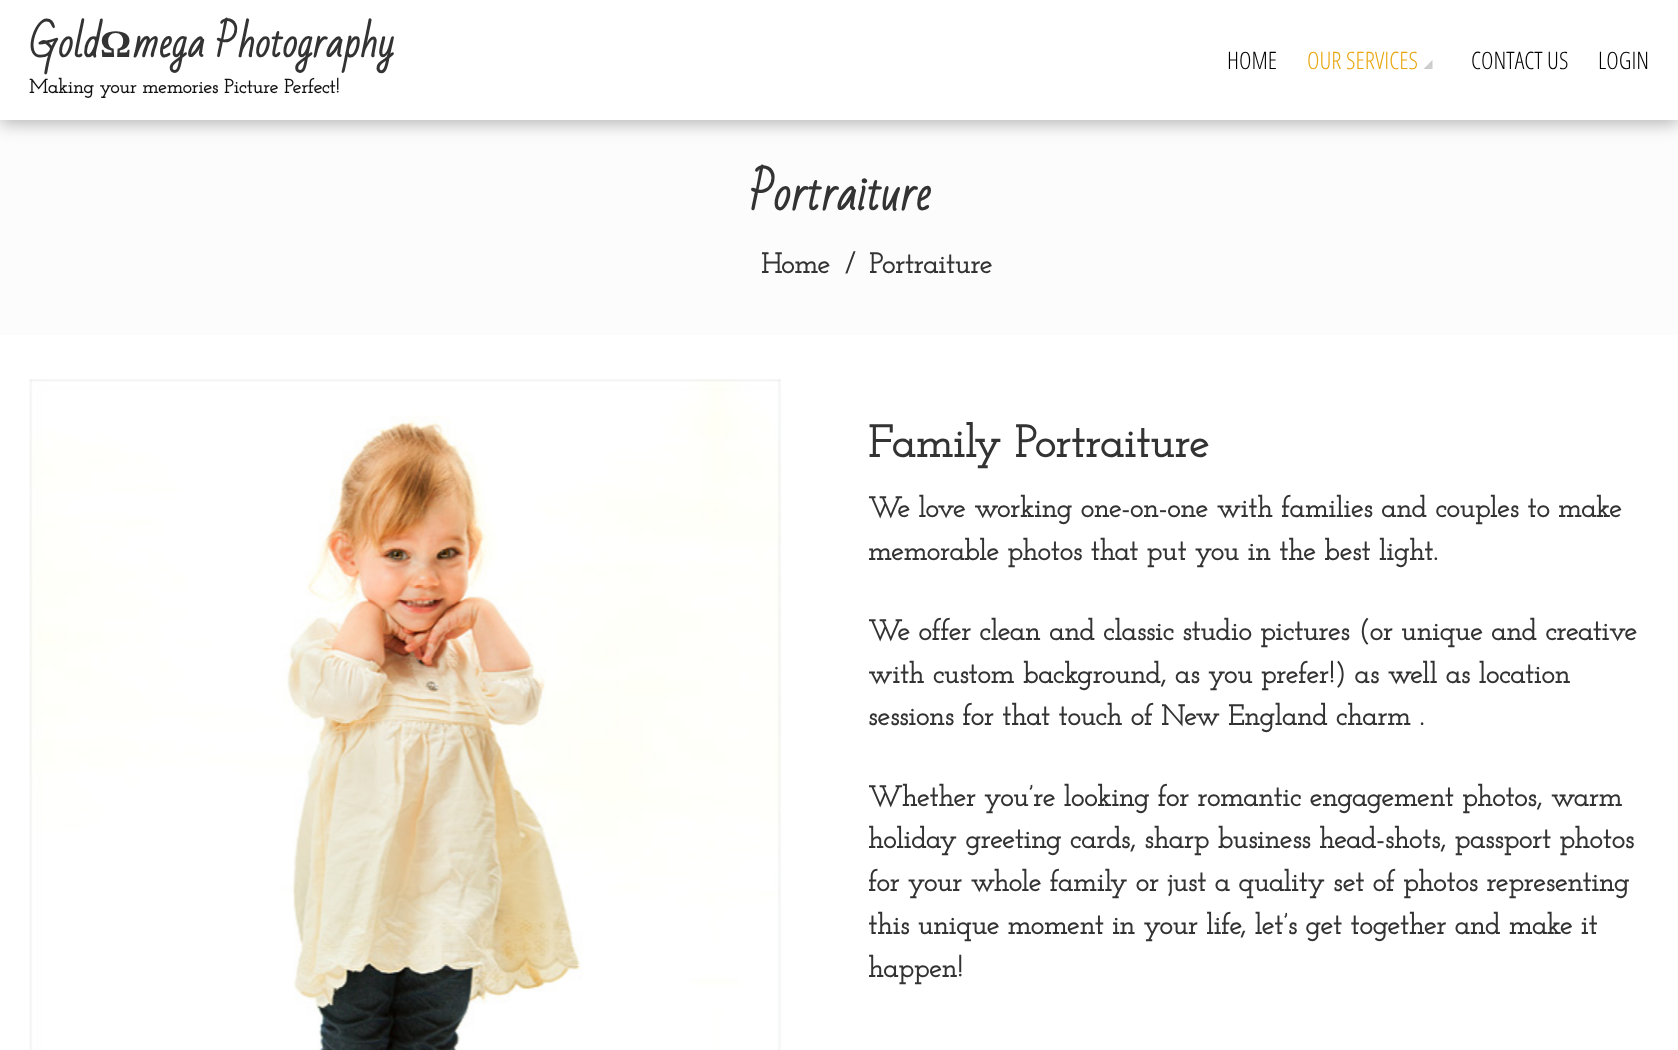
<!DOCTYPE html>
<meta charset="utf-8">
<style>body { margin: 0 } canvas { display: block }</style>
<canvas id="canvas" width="1678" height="1050"></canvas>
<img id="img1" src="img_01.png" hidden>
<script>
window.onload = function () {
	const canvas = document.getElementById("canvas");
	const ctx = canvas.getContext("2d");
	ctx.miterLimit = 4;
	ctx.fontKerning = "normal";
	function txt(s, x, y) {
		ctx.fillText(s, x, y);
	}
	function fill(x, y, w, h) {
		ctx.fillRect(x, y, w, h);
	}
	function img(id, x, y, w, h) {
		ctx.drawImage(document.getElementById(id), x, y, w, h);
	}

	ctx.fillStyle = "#FFFFFF";
	fill(0, 0, 1678, 1050);
	ctx.fillStyle = "#FCFCFC";
	fill(0, 120, 1678, 215);
	ctx.fillStyle = "rgba(0, 0, 0, 0.3)";
	ctx.filter = "blur(9px)";
	ctx.beginPath();
	ctx.rect(0, 3, 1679, 120);
	ctx.fill();
	ctx.filter = "none";
	ctx.fillStyle = "#FFFFFF";
	fill(0, 0, 1678, 120);
	ctx.fillStyle = "#CCCCCC";
	ctx.beginPath();
	ctx.moveTo(1432.5, 60);
	ctx.lineTo(1432.5, 69);
	ctx.lineTo(1428, 64.5);
	ctx.closePath();
	ctx.fill();
	ctx.beginPath();
	ctx.moveTo(1432.5, 69);
	ctx.lineTo(1423.5, 69);
	ctx.lineTo(1428, 64.5);
	ctx.closePath();
	ctx.fill();
	img("img1", 29, 379, 752, 671);
	ctx.font = "bold 39px Bad Script";
	ctx.fillStyle = "#333333";
	txt("Gold", 29, 57);
	ctx.font = "bold 39px Liberation Serif";
	txt("Ω", 100, 57);
	ctx.font = "bold 39px Bad Script";
	txt("mega Photography", 132, 57);
	ctx.font = "bold 19.5px Josefin Slab";
	ctx.fillStyle = "#111111";
	txt("Making your memories Picture Perfect!", 29, 93);
	ctx.font = "300 24px Open Sans Condensed";
	ctx.fillStyle = "#000000";
	txt("HOME", 1227, 69);
	ctx.fillStyle = "#E8A710";
	txt("OUR SERVICES", 1307, 69);
	ctx.fillStyle = "#000000";
	txt("CONTACT US", 1471, 69);
	txt("LOGIN", 1598, 69);
	ctx.font = "bold 45px Bad Script";
	ctx.fillStyle = "#333333";
	txt("Portraiture", 749, 210);
	ctx.font = "bold 28.5px Josefin Slab";
	txt("Home", 761, 273);
	txt("/", 845, 273);
	txt("Portraiture", 869, 273);
	ctx.font = "bold 45px Josefin Slab";
	txt("Family Portraiture", 868, 457);
	ctx.font = "bold 28.5px Josefin Slab";
	txt("We love working one-on-one with families and couples to make", 868, 517);
	txt("memorable photos that put you in the best light.", 868, 560);
	txt("We offer clean and classic studio pictures (or unique and creative", 868, 640);
	txt("with custom background, as you prefer!) as well as location", 868, 683);
	txt("sessions for that touch of New England charm .", 868, 725);
	txt("Whether you’re looking for romantic engagement photos, warm", 868, 806);
	txt("holiday greeting cards, sharp business head-shots, passport photos", 868, 848);
	txt("for your whole family or just a quality set of photos representing", 868, 891);
	txt("this unique moment in your life, let’s get together and make it", 868, 934);
	txt("happen!", 868, 977);
};
</script>
